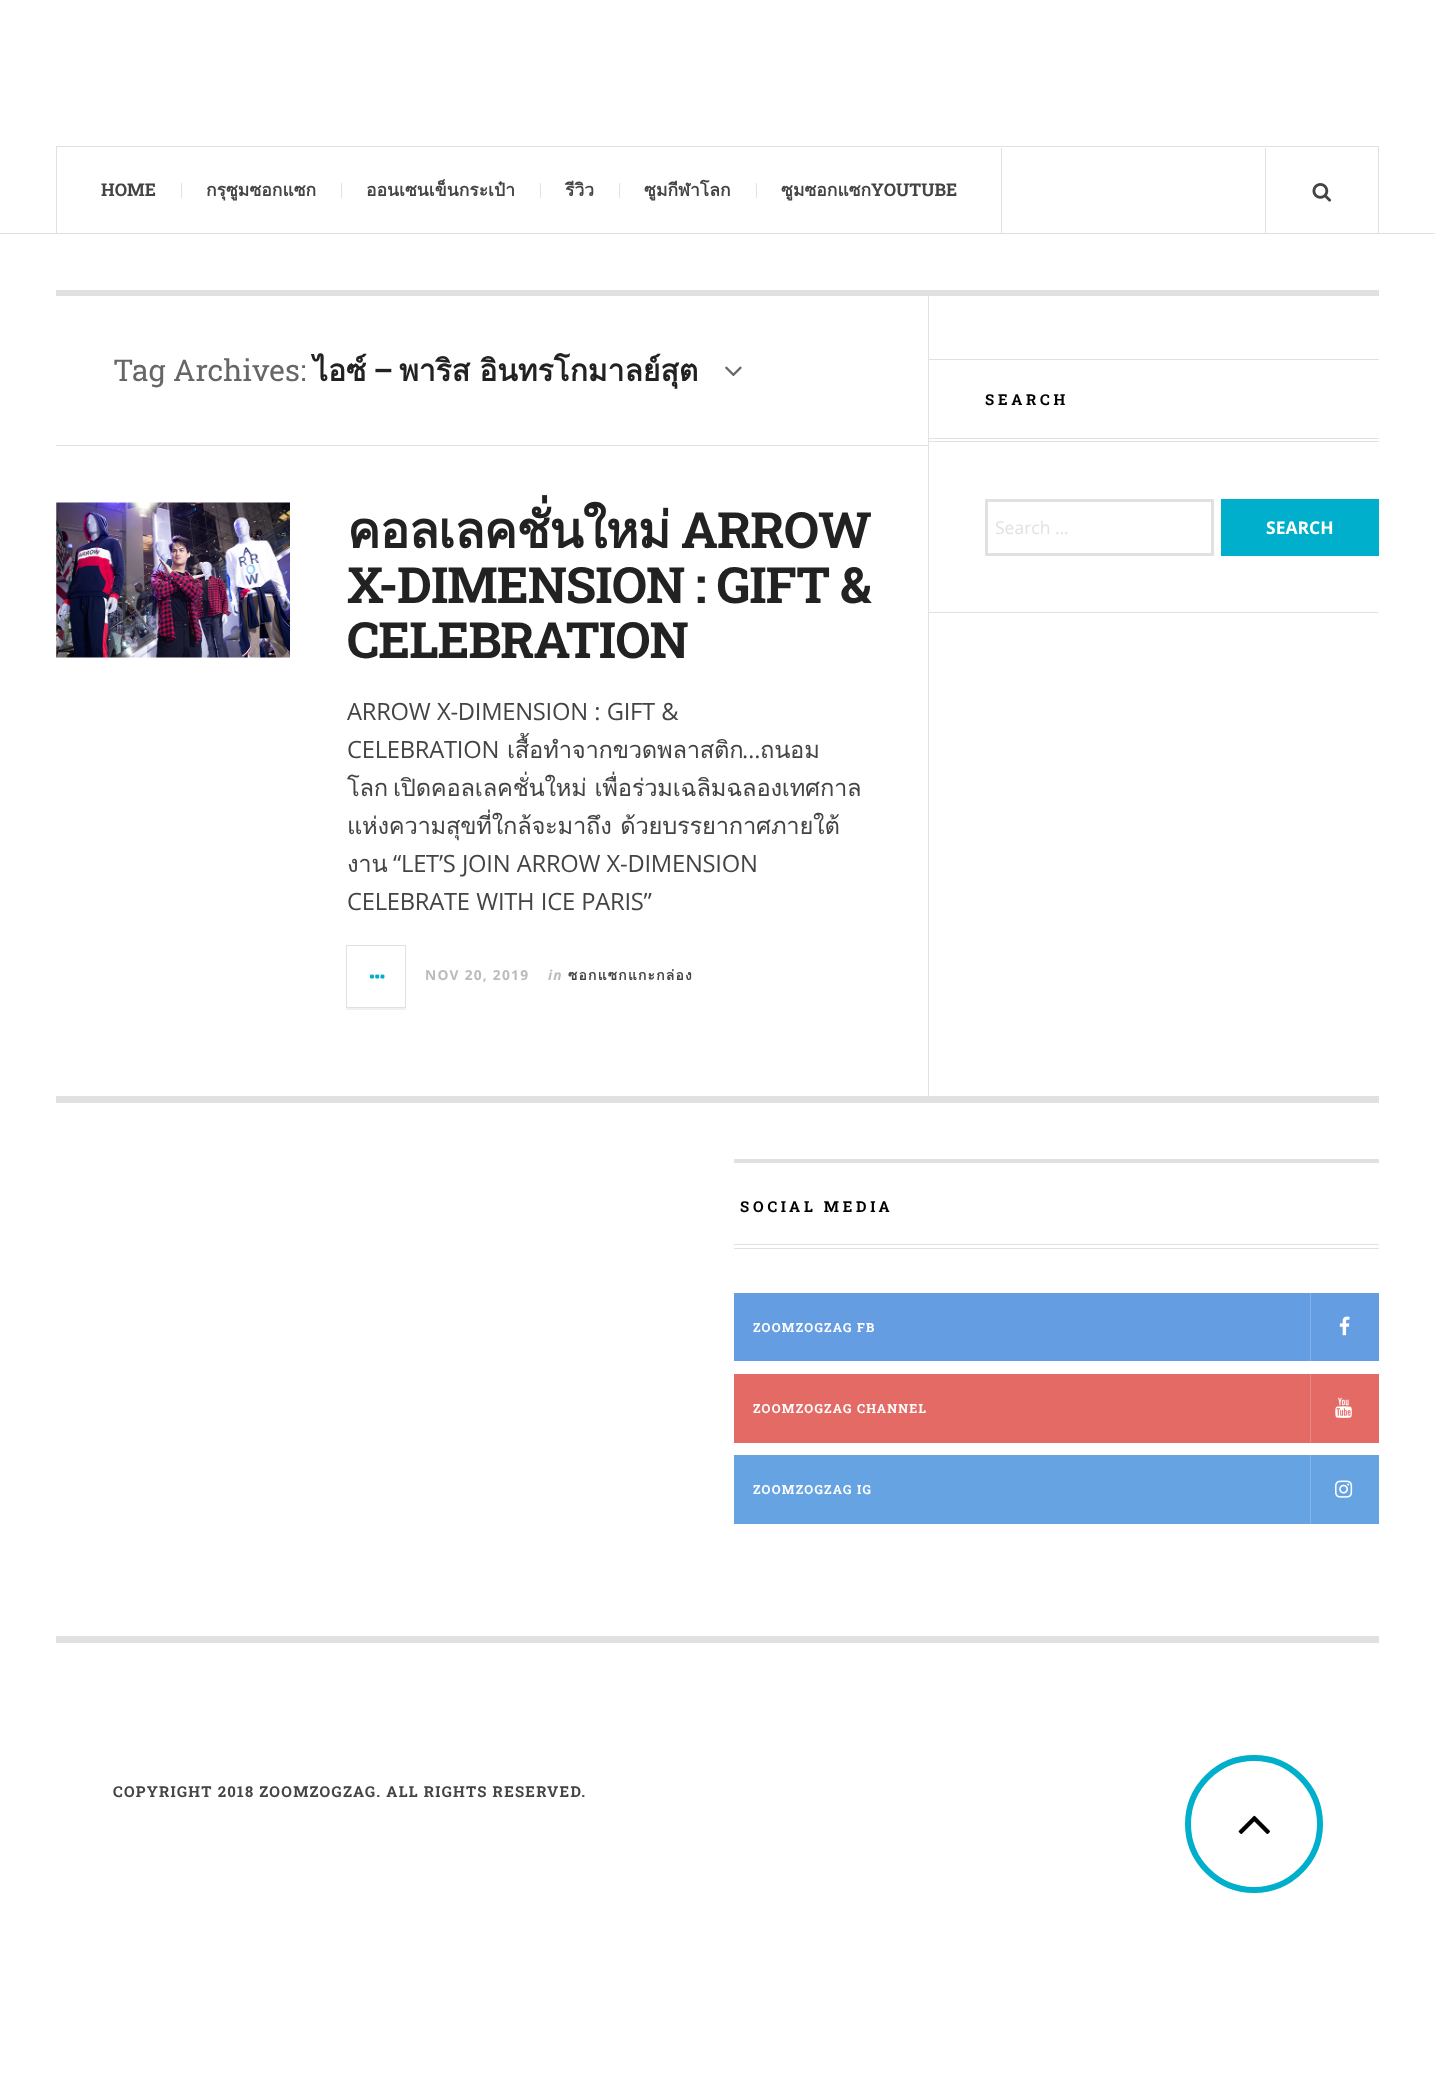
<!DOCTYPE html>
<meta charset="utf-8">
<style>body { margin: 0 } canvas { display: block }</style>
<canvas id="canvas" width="1435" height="2083"></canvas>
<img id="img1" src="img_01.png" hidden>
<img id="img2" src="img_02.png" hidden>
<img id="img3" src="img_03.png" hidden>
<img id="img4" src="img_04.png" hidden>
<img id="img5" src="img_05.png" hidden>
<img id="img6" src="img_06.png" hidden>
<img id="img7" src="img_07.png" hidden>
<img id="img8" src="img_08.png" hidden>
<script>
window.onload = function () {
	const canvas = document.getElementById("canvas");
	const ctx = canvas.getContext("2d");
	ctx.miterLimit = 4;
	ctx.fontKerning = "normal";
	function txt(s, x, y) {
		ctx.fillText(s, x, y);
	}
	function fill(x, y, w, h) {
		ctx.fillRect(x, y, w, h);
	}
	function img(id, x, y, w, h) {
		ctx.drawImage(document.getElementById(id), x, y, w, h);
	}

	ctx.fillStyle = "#FFFFFF";
	fill(0, 0, 1435, 2083);
	ctx.fillStyle = "#E1E1E1";
	fill(0, 233, 1435, 1);
	ctx.strokeStyle = "#E1E1E1";
	ctx.strokeRect(56.5, 146.5, 1322, 87);
	fill(1001, 148, 1, 85);
	fill(181, 183, 1, 15);
	fill(341, 183, 1, 15);
	fill(540, 183, 1, 15);
	fill(619, 183, 1, 15);
	fill(756, 183, 1, 15);
	fill(1265, 148, 1, 85);
	img("img1", 1312, 183, 20, 19);
	fill(56, 290, 1323, 6);
	fill(56, 1096, 1323, 7);
	fill(928, 613, 1, 483);
	fill(56, 445, 872, 1);
	img("img2", 725, 366, 17, 11);
	img("img3", 56, 502, 234, 156);
	ctx.fillStyle = "#F0F0F0";
	ctx.beginPath();
	ctx.moveTo(346, 948);
	ctx.lineTo(346, 1010);
	ctx.lineTo(406, 1010);
	ctx.lineTo(406, 1008);
	ctx.lineTo(346, 1008);
	ctx.closePath();
	ctx.fill();
	ctx.strokeRect(346.5, 945.5, 59, 62);
	img("img4", 370, 974, 15, 5);
	ctx.fillStyle = "#E1E1E1";
	ctx.beginPath();
	ctx.moveTo(928, 296);
	ctx.lineTo(928, 613);
	ctx.lineTo(1378, 613);
	ctx.lineTo(1378, 612);
	ctx.lineTo(929, 612);
	ctx.lineTo(929, 296);
	ctx.lineTo(1378, 296);
	ctx.closePath();
	ctx.fill();
	fill(929, 359, 450, 1);
	fill(929, 438, 450, 1);
	fill(929, 441, 450, 1);
	ctx.lineWidth = 3;
	ctx.strokeRect(986.5, 500.5, 226, 54);
	ctx.fillStyle = "#00AFCC";
	fill(1221, 499, 158, 57);
	ctx.fillStyle = "#E1E1E1";
	fill(56, 1636, 1323, 7);
	fill(734, 1159, 645, 4);
	fill(734, 1244, 645, 1);
	fill(734, 1248, 645, 1);
	ctx.fillStyle = "#659DE3";
	fill(734, 1293, 645, 68);
	ctx.fillStyle = "#84B1E9";
	fill(1310, 1293, 1, 68);
	img("img5", 1339, 1316, 11, 20);
	ctx.fillStyle = "#E36A65";
	fill(734, 1374, 645, 69);
	ctx.fillStyle = "#E98884";
	fill(1310, 1374, 1, 69);
	img("img6", 1335, 1397, 17, 21);
	ctx.fillStyle = "#65A3E3";
	fill(734, 1455, 645, 69);
	ctx.fillStyle = "#84B5E9";
	fill(1310, 1455, 1, 69);
	img("img7", 1335, 1480, 18, 18);
	ctx.beginPath();
	ctx.arc(1254, 1824, 66, 0, Math.PI * 2);
	ctx.strokeStyle = "#00AFCC";
	ctx.lineWidth = 6;
	ctx.stroke();
	img("img8", 1238, 1815, 32, 19);
	ctx.font = "bold 17.5px Roboto Slab";
	ctx.fillStyle = "#444444";
	txt("HOME", 101, 196);
	ctx.font = "bold 17.5px Loma";
	txt("กรุซูมซอกแซก", 206, 196);
	txt("ออนเซนเข็นกระเป๋า", 366, 196);
	txt("รีวิว", 565, 196);
	txt("ซูมกีฬาโลก", 644, 196);
	txt("ซูมซอกแซก", 781, 196);
	ctx.font = "bold 17.5px Roboto Slab";
	txt("YOUTUBE", 871, 196);
	ctx.font = "30px Roboto Slab";
	ctx.fillStyle = "#666666";
	txt("Tag Archives:", 113, 381);
	ctx.font = "bold 30px Loma";
	ctx.fillStyle = "#222222";
	txt("ไอซ์", 313, 381);
	ctx.font = "bold 30px Roboto Slab";
	txt("–", 373, 381);
	ctx.wordSpacing = "-1px";
	ctx.font = "bold 30px Loma";
	txt("พาริส อินทรโกมาลย์สุต", 399, 381);
	ctx.letterSpacing = "-1px";
	ctx.wordSpacing = "0px";
	ctx.font = "bold 50px Loma";
	txt("คอลเลคชั่นใหม่", 347, 548);
	ctx.font = "bold 50px Roboto Slab";
	txt("ARROW", 681, 548);
	txt("X-DIMENSION : GIFT &", 347, 603);
	txt("CELEBRATION", 347, 658);
	ctx.letterSpacing = "-0.25px";
	ctx.wordSpacing = "0.5px";
	ctx.font = "23.75px Open Sans";
	ctx.fillStyle = "#444444";
	txt("ARROW X-DIMENSION : GIFT &", 347, 720);
	ctx.wordSpacing = "0px";
	txt("CELEBRATION", 347, 758);
	ctx.font = "23.75px Loma";
	txt("เสื้อทำจากขวดพลาสติก", 507, 758);
	ctx.font = "23.75px Open Sans";
	txt("…", 742, 758);
	ctx.font = "23.75px Loma";
	txt("ถนอม", 760, 758);
	txt("โลก", 347, 796);
	txt("เปิดคอลเลคชั่นใหม่ เพื่อร่วมเฉลิมฉลองเทศกาล", 393, 796);
	ctx.wordSpacing = "1px";
	txt("แห่งความสุขที่ใกล้จะมาถึง ด้วยบรรยากาศภายใต้", 347, 834);
	ctx.wordSpacing = "0px";
	txt("งาน", 347, 872);
	ctx.wordSpacing = "0.5px";
	ctx.font = "23.75px Open Sans";
	txt("“LET’S JOIN ARROW X-DIMENSION", 393, 872);
	txt("CELEBRATE WITH ICE PARIS”", 347, 910);
	ctx.letterSpacing = "1.25px";
	ctx.wordSpacing = "0px";
	ctx.font = "bold 13.75px Open Sans";
	ctx.fillStyle = "#BBBBBB";
	txt("NOV 20, 2019", 425, 980);
	ctx.font = "italic bold 13.75px Open Sans";
	txt("in", 548, 980);
	ctx.font = "bold 13.75px Loma";
	ctx.fillStyle = "#444444";
	txt("ซอกแซกแกะกล่อง", 568, 980);
	ctx.letterSpacing = "3.75px";
	ctx.font = "bold 15px Roboto Slab";
	ctx.fillStyle = "#000000";
	txt("SEARCH", 985, 405);
	ctx.letterSpacing = "0px";
	ctx.font = "17.5px Open Sans";
	ctx.fillStyle = "#E1E1E1";
	txt("Search …", 995, 534);
	ctx.font = "bold 17.5px Open Sans";
	ctx.fillStyle = "#FFFFFF";
	txt("SEARCH", 1266, 534);
	ctx.letterSpacing = "3.75px";
	ctx.font = "bold 15px Roboto Slab";
	ctx.fillStyle = "#000000";
	txt("SOCIAL MEDIA", 740, 1212);
	ctx.letterSpacing = "1.25px";
	ctx.font = "bold 12.5px Roboto Slab";
	ctx.fillStyle = "#FFFFFF";
	txt("ZOOMZOGZAG FB", 753, 1332);
	txt("ZOOMZOGZAG CHANNEL", 753, 1413);
	txt("ZOOMZOGZAG IG", 753, 1494);
	ctx.font = "bold 15px Roboto Slab";
	ctx.fillStyle = "#444444";
	txt("COPYRIGHT 2018 ZOOMZOGZAG. ALL RIGHTS RESERVED.", 113, 1797);
};
</script>
